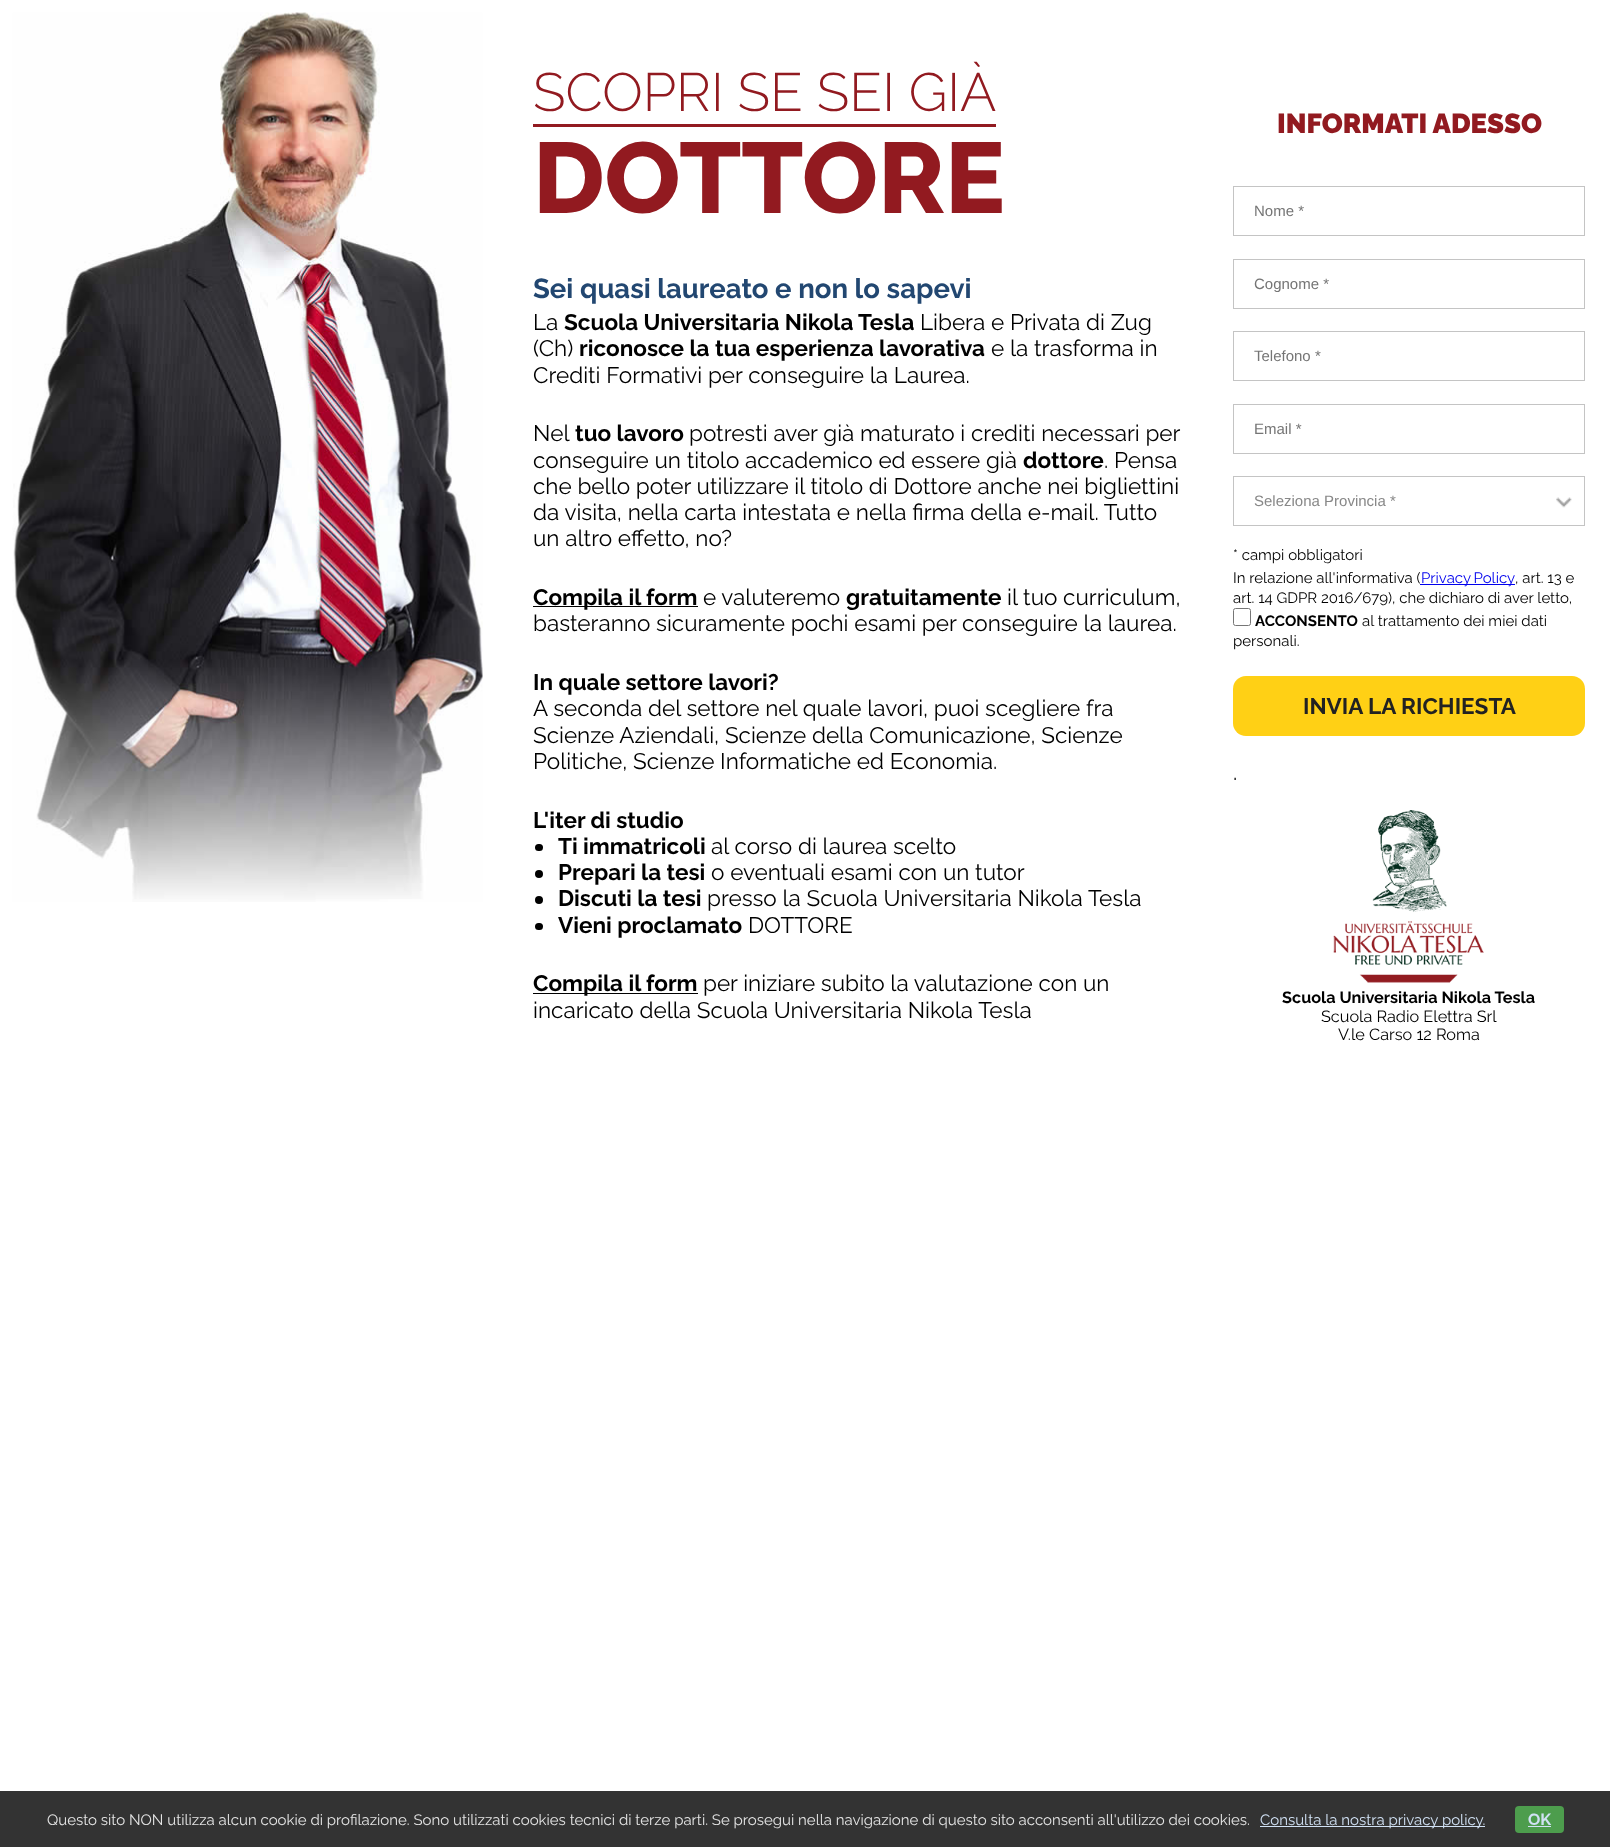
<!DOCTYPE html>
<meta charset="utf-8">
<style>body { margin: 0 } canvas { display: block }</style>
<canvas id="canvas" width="1610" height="1847"></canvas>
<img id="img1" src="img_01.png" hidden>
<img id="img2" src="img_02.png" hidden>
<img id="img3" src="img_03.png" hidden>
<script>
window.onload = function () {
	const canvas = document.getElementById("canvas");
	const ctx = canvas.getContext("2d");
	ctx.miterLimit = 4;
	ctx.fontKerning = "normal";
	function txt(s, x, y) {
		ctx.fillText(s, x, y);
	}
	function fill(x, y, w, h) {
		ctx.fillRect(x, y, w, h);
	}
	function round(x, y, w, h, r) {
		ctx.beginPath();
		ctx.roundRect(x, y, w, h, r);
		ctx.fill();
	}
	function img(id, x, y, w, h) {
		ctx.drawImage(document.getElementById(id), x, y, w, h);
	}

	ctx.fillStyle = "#FFFFFF";
	fill(0, 0, 1610, 1847);
	img("img1", 12, 12, 471, 890);
	ctx.fillStyle = "#921A20";
	fill(533, 124, 463, 3);
	ctx.fillStyle = "#000000";
	fill(533, 606, 165, 1);
	round(535, 844, 8, 7, 3.5);
	ctx.beginPath();
	ctx.arc(539, 874, 4, 0, Math.PI * 2);
	ctx.fill();
	ctx.beginPath();
	ctx.arc(539, 900, 4, 0, Math.PI * 2);
	ctx.fill();
	round(535, 923, 8, 7, 3.5);
	fill(533, 993, 165, 1);
	ctx.strokeStyle = "#C4C4C4";
	ctx.strokeRect(1233.5, 186.5, 351, 49);
	ctx.strokeRect(1233.5, 259.5, 351, 49);
	ctx.strokeRect(1233.5, 331.5, 351, 49);
	ctx.strokeRect(1233.5, 404.5, 351, 49);
	img("img2", 1556, 497, 16, 11);
	ctx.strokeRect(1233.5, 476.5, 351, 49);
	ctx.fillStyle = "#0000EE";
	fill(1420, 584, 95, 1);
	ctx.beginPath();
	ctx.roundRect(1233.5, 608.5, 17, 17, 2);
	ctx.strokeStyle = "#767676";
	ctx.stroke();
	ctx.fillStyle = "#FFD015";
	round(1233, 676, 352, 60, 13);
	img("img3", 1333, 810, 151, 173);
	ctx.fillStyle = "#333333";
	fill(0, 1791, 1610, 56);
	ctx.fillStyle = "#D1E1F4";
	fill(1260, 1826, 225, 1);
	ctx.fillStyle = "#4D9D4D";
	round(1515, 1806, 49, 27, 4);
	ctx.fillStyle = "#D1E1F4";
	fill(1528, 1826, 23, 1);
	ctx.font = "300 53.75px Raleway";
	ctx.fillStyle = "#921A20";
	txt("SCOPRI SE SEI GIÀ", 533, 111);
	ctx.font = "800 100px Raleway";
	txt("DOTTORE", 533, 213);
	ctx.font = "bold 27.5px Raleway";
	ctx.fillStyle = "#224771";
	txt("Sei quasi laureato e non lo sapevi", 533, 298);
	ctx.font = "22.5px Raleway";
	ctx.fillStyle = "#000000";
	txt("La", 533, 330);
	ctx.font = "bold 22.5px Raleway";
	txt("Scuola Universitaria Nikola Tesla", 564, 330);
	ctx.font = "22.5px Raleway";
	txt("Libera e Privata di Zug", 920, 330);
	txt("(Ch)", 533, 356);
	ctx.font = "bold 22.5px Raleway";
	txt("riconosce la tua esperienza lavorativa", 579, 356);
	ctx.font = "22.5px Raleway";
	txt("e la trasforma in", 991, 356);
	txt("Crediti Formativi per conseguire la Laurea.", 533, 383);
	txt("Nel", 533, 441);
	ctx.font = "bold 22.5px Raleway";
	txt("tuo lavoro", 575, 441);
	ctx.font = "22.5px Raleway";
	txt("potresti aver già maturato i", 689, 441);
	txt("crediti necessari per", 971, 441);
	txt("conseguire un titolo accademico ed essere già", 533, 468);
	ctx.font = "bold 22.5px Raleway";
	txt("dottore", 1023, 468);
	ctx.font = "22.5px Raleway";
	txt(". Pensa", 1104, 468);
	txt("che bello poter utilizzare il titolo di Dottore anche nei bigliettini", 533, 494);
	txt("da visita, nella carta intestata e nella firma della e-mail. Tutto", 533, 520);
	txt("un altro effetto, no?", 533, 546);
	ctx.font = "bold 22.5px Raleway";
	txt("Compila il form", 533, 605);
	ctx.font = "22.5px Raleway";
	txt("e valuteremo", 703, 605);
	ctx.font = "bold 22.5px Raleway";
	txt("gratuitamente", 846, 605);
	ctx.font = "22.5px Raleway";
	txt("il tuo curriculum,", 1007, 605);
	txt("basteranno sicuramente pochi esami per conseguire la laurea.", 533, 631);
	ctx.font = "bold 22.5px Raleway";
	txt("In quale settore lavori?", 533, 690);
	ctx.font = "22.5px Raleway";
	txt("A seconda del settore nel quale lavori, puoi scegliere fra", 533, 716);
	txt("Scienze Aziendali, Scienze della Comunicazione, Scienze", 533, 743);
	txt("Politiche, Scienze Informatiche ed Economia.", 533, 769);
	ctx.font = "bold 22.5px Raleway";
	txt("L'iter di studio", 533, 828);
	txt("Ti immatricoli", 558, 854);
	ctx.font = "22.5px Raleway";
	txt("al corso di laurea scelto", 711, 854);
	ctx.font = "bold 22.5px Raleway";
	txt("Prepari la tesi", 558, 880);
	ctx.font = "22.5px Raleway";
	txt("o eventuali esami con un tutor", 711, 880);
	ctx.font = "bold 22.5px Raleway";
	txt("Discuti la tesi", 558, 906);
	ctx.font = "22.5px Raleway";
	txt("presso la Scuola Universitaria Nikola Tesla", 707, 906);
	ctx.font = "bold 22.5px Raleway";
	txt("Vieni proclamato", 558, 933);
	ctx.font = "22.5px Raleway";
	txt("DOTTORE", 748, 933);
	ctx.font = "bold 22.5px Raleway";
	txt("Compila il form", 533, 991);
	ctx.font = "22.5px Raleway";
	txt("per iniziare subito la valutazione con un", 703, 991);
	txt("incaricato della Scuola Universitaria Nikola Tesla", 533, 1018);
	ctx.font = "900 27.5px Raleway";
	ctx.fillStyle = "#921A20";
	txt("INFORMATI ADESSO", 1277, 133);
	ctx.font = "15px Liberation Sans";
	ctx.fillStyle = "#757575";
	txt("Nome *", 1254, 216);
	txt("Cognome *", 1254, 289);
	txt("Telefono *", 1254, 361);
	txt("Email *", 1254, 434);
	ctx.fillStyle = "#888888";
	txt("Seleziona Provincia *", 1254, 506);
	ctx.font = "15px Raleway";
	ctx.fillStyle = "#000000";
	txt("* campi obbligatori", 1233, 560);
	txt("In relazione all'informativa (", 1233, 583);
	ctx.wordSpacing = "-1px";
	ctx.fillStyle = "#0000EE";
	txt("Privacy Policy", 1421, 583);
	ctx.wordSpacing = "0px";
	ctx.fillStyle = "#000000";
	txt(", art. 13 e", 1515, 583);
	txt("art. 14 GDPR 2016/679), che dichiaro di aver letto,", 1233, 603);
	ctx.font = "bold 15px Raleway";
	txt("ACCONSENTO", 1255, 626);
	ctx.font = "15px Raleway";
	txt("al trattamento dei miei dati", 1362, 626);
	txt("personali.", 1233, 646);
	ctx.font = "bold 22.5px Raleway";
	ctx.fillStyle = "#222222";
	txt("INVIA LA RICHIESTA", 1303, 714);
	ctx.font = "22.5px Raleway";
	ctx.fillStyle = "#000000";
	txt(".", 1233, 780);
	ctx.font = "bold 16.25px Raleway";
	txt("Scuola Universitaria Nikola Tesla", 1282, 1003);
	ctx.font = "16.25px Raleway";
	txt("Scuola Radio Elettra Srl", 1321, 1022);
	txt("V.le Carso 12 Roma", 1338, 1040);
	ctx.font = "15px Raleway";
	ctx.fillStyle = "#E4E4E4";
	txt("Questo sito NON utilizza alcun cookie di profilazione. Sono utilizzati cookies tecnici di terze parti. Se prosegui nella navigazione di questo sito acconsenti all'utilizzo dei cookies.", 47, 1825);
	ctx.fillStyle = "#D1E1F4";
	txt("Consulta la nostra privacy policy.", 1260, 1825);
	ctx.font = "bold 16.25px Raleway";
	txt("OK", 1528, 1825);
};
</script>
